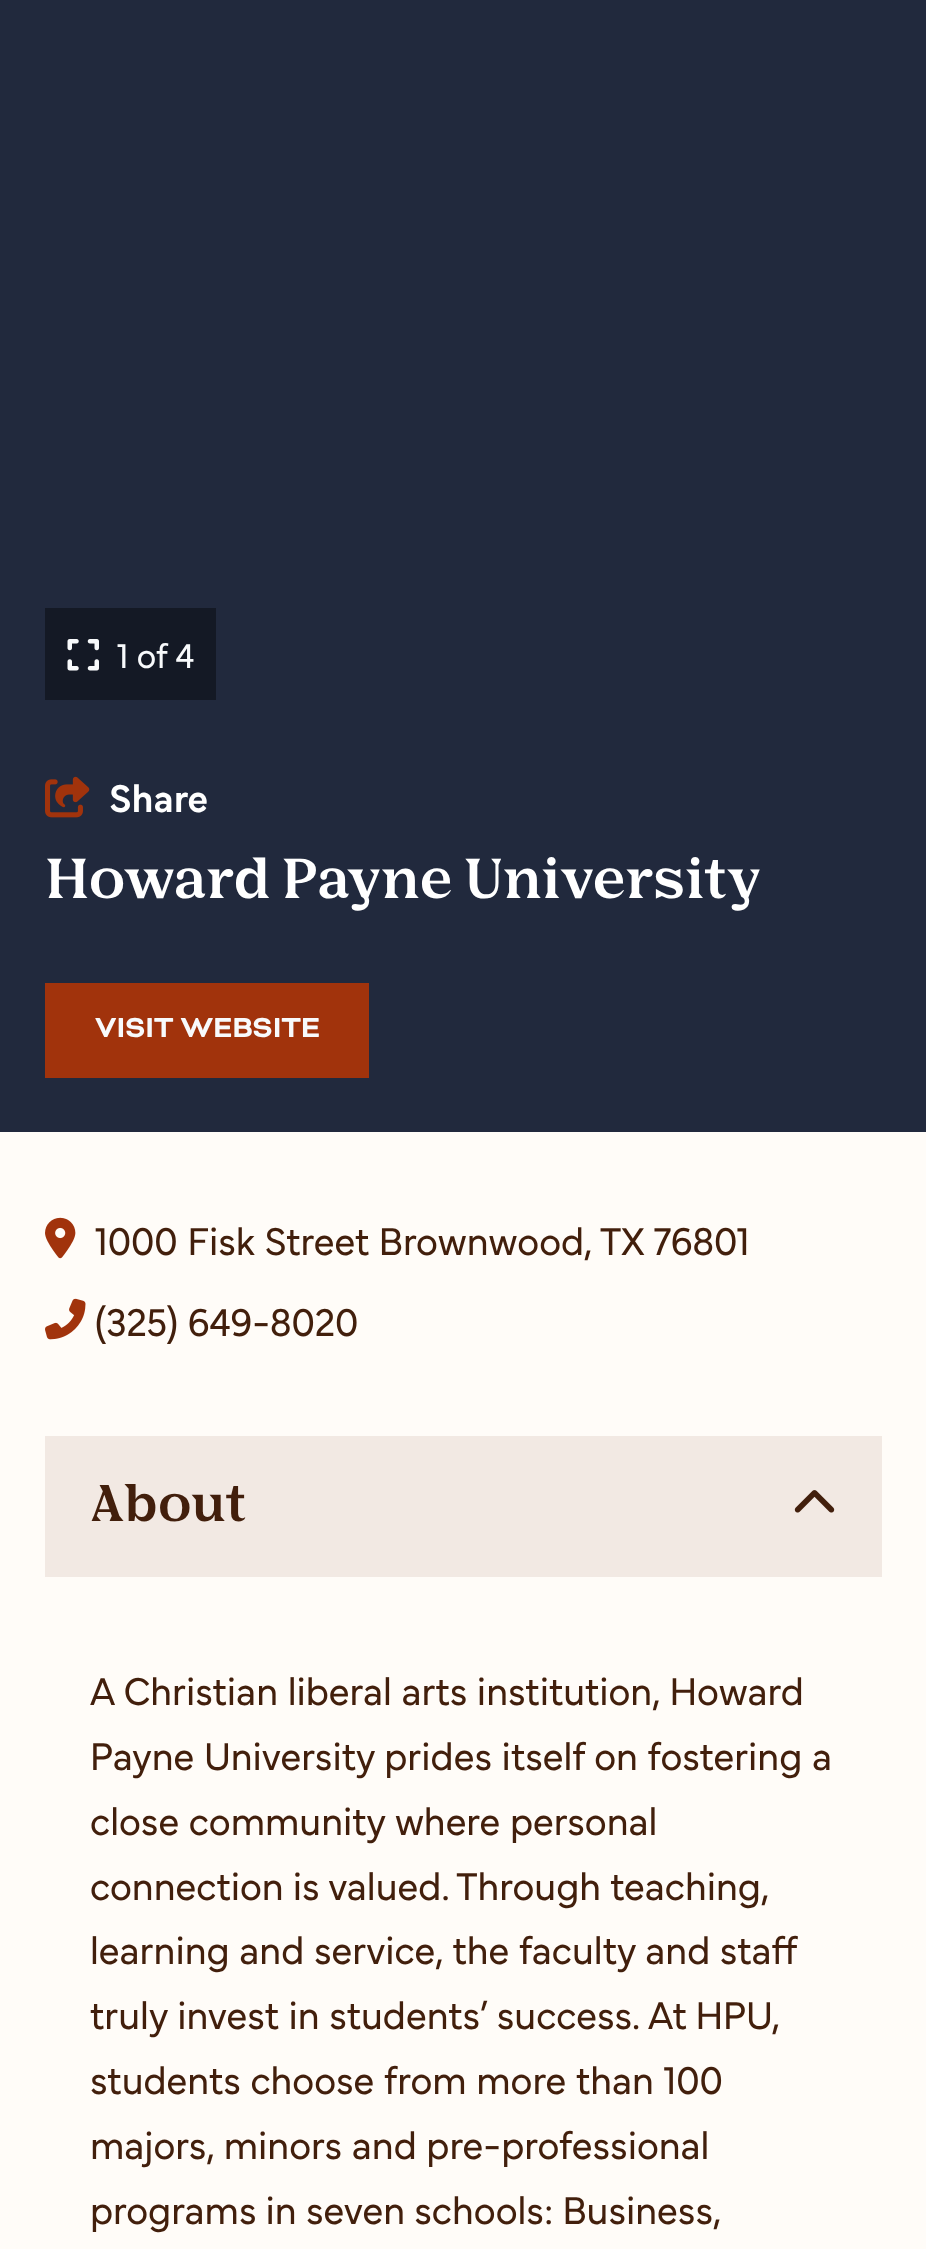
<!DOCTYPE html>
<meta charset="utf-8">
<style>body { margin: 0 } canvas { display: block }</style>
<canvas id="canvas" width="926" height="2249"></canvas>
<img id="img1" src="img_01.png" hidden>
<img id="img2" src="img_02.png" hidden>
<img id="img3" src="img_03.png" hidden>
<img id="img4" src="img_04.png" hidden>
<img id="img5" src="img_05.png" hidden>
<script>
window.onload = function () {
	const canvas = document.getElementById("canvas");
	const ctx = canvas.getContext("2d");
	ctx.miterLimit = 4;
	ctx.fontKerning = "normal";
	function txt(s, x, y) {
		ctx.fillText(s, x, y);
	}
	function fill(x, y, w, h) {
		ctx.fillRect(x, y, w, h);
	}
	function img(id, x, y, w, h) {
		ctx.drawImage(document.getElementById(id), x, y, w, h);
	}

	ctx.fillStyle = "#FFFCF8";
	fill(0, 0, 926, 2249);
	ctx.fillStyle = "#21293D";
	fill(0, 0, 926, 1132);
	ctx.fillStyle = "#141925";
	fill(45, 608, 171, 92);
	img("img1", 67, 639, 32, 32);
	img("img2", 45, 776, 45, 42);
	ctx.fillStyle = "#A1330C";
	fill(45, 983, 324, 95);
	img("img3", 45, 1217, 31, 42);
	img("img4", 45, 1298, 41, 42);
	ctx.fillStyle = "#F2E9E3";
	fill(45, 1436, 837, 141);
	img("img5", 794, 1490, 41, 23);
	ctx.font = "36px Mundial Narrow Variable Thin";
	ctx.fillStyle = "#F8FAFC";
	txt("1 of 4", 117, 668);
	ctx.font = "600 40.5px Mundial Narrow Variable Thin";
	ctx.fillStyle = "#FFFFFF";
	txt("Share", 109, 812);
	ctx.font = "bold 54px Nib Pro";
	txt("Howard Payne University", 45, 898);
	ctx.font = "bold 31.5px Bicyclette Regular";
	ctx.fillStyle = "#F8FAFC";
	txt("VISIT WEBSITE", 95, 1037);
	ctx.font = "40.5px Mundial Narrow Variable Thin";
	ctx.fillStyle = "#421F0C";
	txt("1000 Fisk Street Brownwood, TX 76801", 95, 1255);
	txt("(325) 649-8020", 95, 1336);
	ctx.font = "bold 49.5px Nib Pro";
	txt("About", 90, 1521);
	ctx.font = "40.5px Mundial Narrow Variable Thin";
	txt("A Christian liberal arts institution, Howard", 90, 1705);
	txt("Payne University prides itself on fostering a", 90, 1770);
	txt("close community where personal", 90, 1835);
	ctx.wordSpacing = "-0.5px";
	txt("connection is valued. Through teaching,", 90, 1900);
	ctx.wordSpacing = "0px";
	txt("learning and service, the faculty and staff", 90, 1964);
	txt("truly invest in students’ success.", 90, 2029);
	ctx.wordSpacing = "-1px";
	txt("At HPU,", 648, 2029);
	ctx.wordSpacing = "0px";
	txt("students choose from more than 100", 90, 2094);
	txt("majors, minors and pre-professional", 90, 2159);
	ctx.wordSpacing = "-0.5px";
	txt("programs in seven schools: Business,", 90, 2224);
};
</script>
